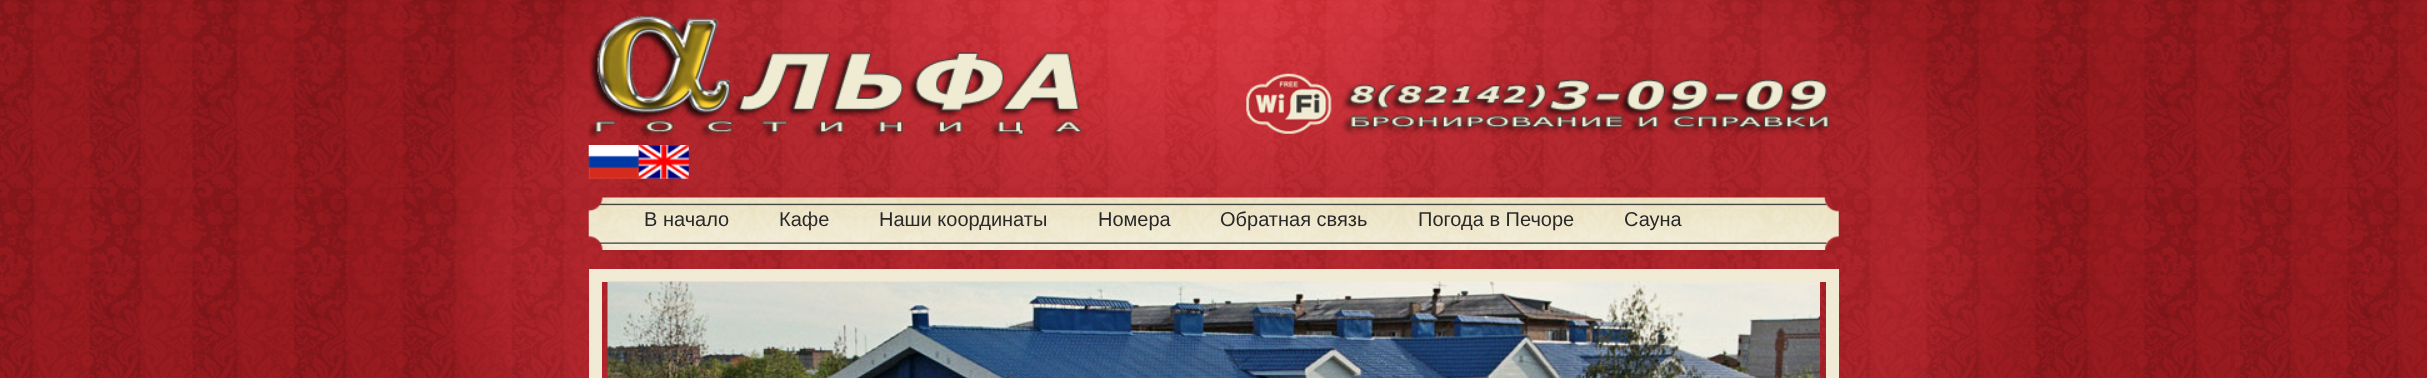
<!DOCTYPE html>
<meta charset="utf-8">
<style>body { margin: 0 } canvas { display: block }</style>
<canvas id="canvas" width="2427" height="378"></canvas>
<img id="img1" src="img_01.png" hidden>
<img id="img2" src="img_02.png" hidden>
<img id="img3" src="img_03.png" hidden>
<img id="img4" src="img_04.png" hidden>
<img id="img5" src="img_05.png" hidden>
<img id="img6" src="img_06.png" hidden>
<img id="img7" src="img_07.png" hidden>
<script>
window.onload = function () {
	const canvas = document.getElementById("canvas");
	const ctx = canvas.getContext("2d");
	ctx.miterLimit = 4;
	ctx.fontKerning = "normal";
	function txt(s, x, y) {
		ctx.fillText(s, x, y);
	}
	function fill(x, y, w, h) {
		ctx.fillRect(x, y, w, h);
	}
	function img(id, x, y, w, h) {
		ctx.drawImage(document.getElementById(id), x, y, w, h);
	}

	ctx.fillStyle = "#FFFFFF";
	fill(0, 0, 2427, 378);
	img("img1", 0, 0, 2427, 378);
	img("img2", 192, 0, 2043, 378);
	img("img3", 588, 16, 1241, 125);
	img("img4", 588, 145, 51, 34);
	img("img5", 638, 145, 51, 34);
	img("img6", 588, 197, 1251, 53);
	ctx.strokeStyle = "#F1EBD5";
	ctx.lineWidth = 13;
	ctx.strokeRect(595.5, 275.5, 1237, 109);
	img("img7", 607, 281, 1213, 97);
	ctx.font = "20px Liberation Sans";
	ctx.fillStyle = "#282828";
	txt("В начало", 644, 226);
	txt("Кафе", 779, 226);
	txt("Наши координаты", 879, 226);
	txt("Номера", 1098, 226);
	txt("Обратная связь", 1220, 226);
	txt("Погода в Печоре", 1418, 226);
	txt("Сауна", 1624, 226);
};
</script>
